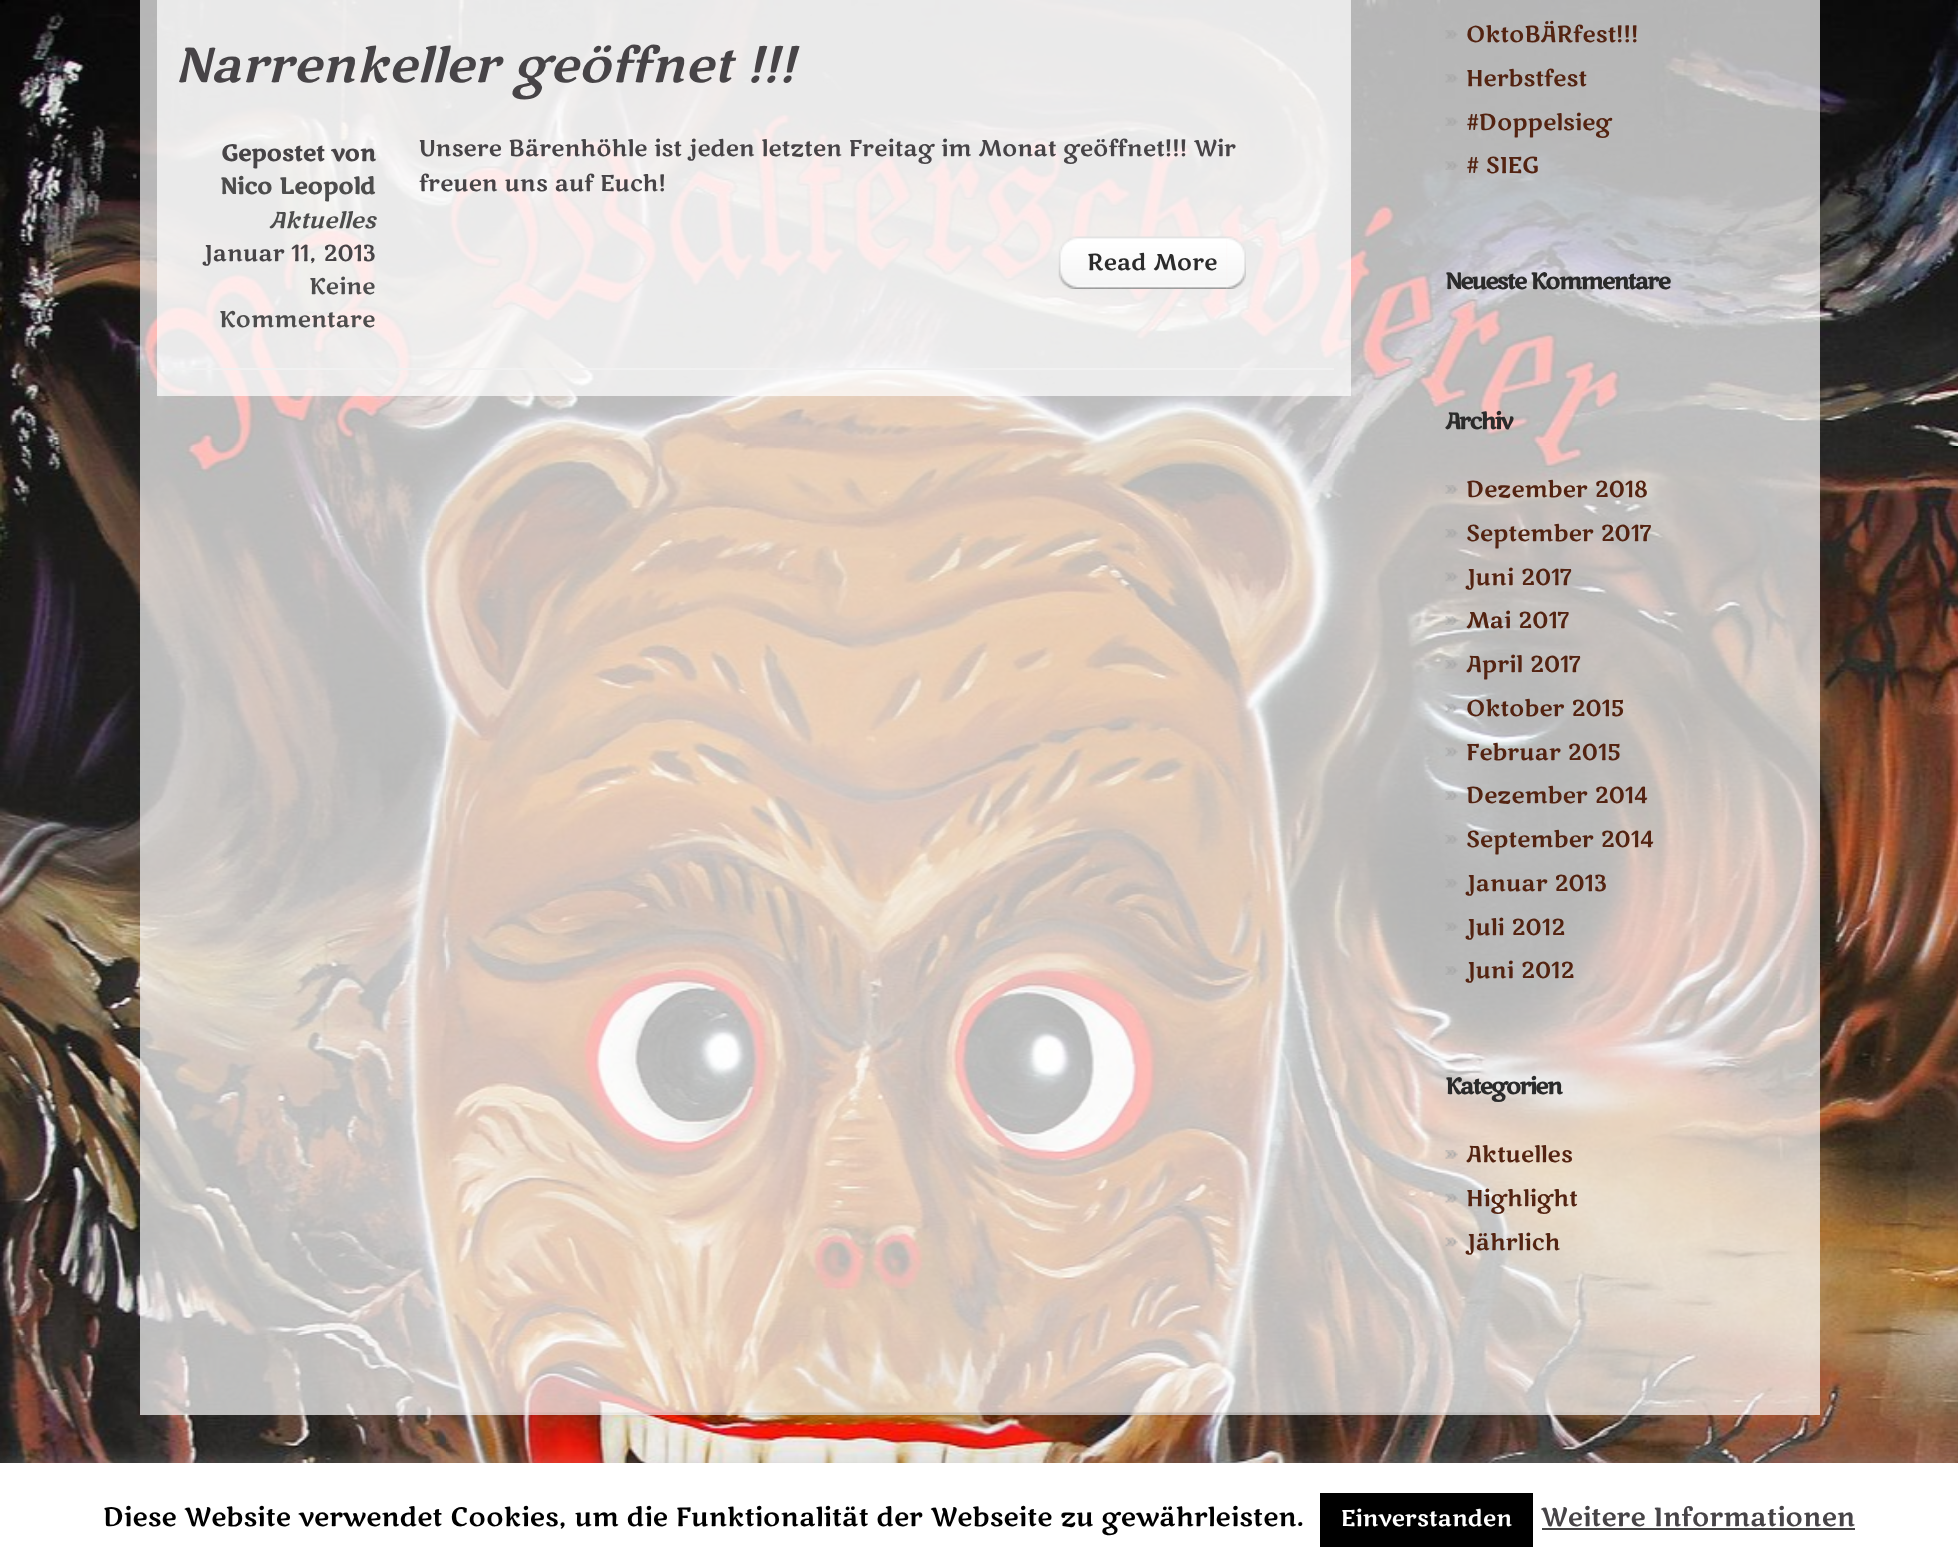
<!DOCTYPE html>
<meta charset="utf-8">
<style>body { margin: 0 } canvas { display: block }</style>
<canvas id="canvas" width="1958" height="1568"></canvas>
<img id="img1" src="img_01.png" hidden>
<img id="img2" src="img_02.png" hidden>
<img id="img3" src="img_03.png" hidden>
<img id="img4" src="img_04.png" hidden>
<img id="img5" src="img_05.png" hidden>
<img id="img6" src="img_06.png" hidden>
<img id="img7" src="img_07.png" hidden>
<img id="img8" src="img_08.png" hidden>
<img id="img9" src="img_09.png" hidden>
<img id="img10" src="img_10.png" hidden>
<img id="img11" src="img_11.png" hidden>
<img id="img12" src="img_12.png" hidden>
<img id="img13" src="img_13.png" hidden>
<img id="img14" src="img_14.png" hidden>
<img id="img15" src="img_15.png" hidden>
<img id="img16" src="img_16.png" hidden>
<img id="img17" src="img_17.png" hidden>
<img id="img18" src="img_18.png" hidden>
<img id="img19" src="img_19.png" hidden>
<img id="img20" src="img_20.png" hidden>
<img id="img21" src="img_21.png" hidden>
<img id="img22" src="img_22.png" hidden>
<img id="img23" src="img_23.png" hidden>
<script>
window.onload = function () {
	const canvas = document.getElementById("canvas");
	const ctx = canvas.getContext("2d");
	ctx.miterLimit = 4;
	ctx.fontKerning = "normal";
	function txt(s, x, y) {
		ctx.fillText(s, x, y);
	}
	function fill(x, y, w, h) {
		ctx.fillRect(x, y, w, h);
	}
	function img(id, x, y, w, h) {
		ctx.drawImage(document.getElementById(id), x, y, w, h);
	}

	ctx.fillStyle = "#FFFFFF";
	fill(0, 0, 1958, 1568);
	img("img1", 0, 0, 1958, 1463);
	ctx.fillStyle = "rgba(255, 255, 255, 0.7)";
	fill(140, 0, 1680, 1415);
	fill(157, 0, 1194, 396);
	ctx.fillStyle = "#F1F1F1";
	fill(175, 368, 1159, 2);
	img("img2", 1226, 236, 20, 53);
	img("img3", 1058, 236, 169, 53);
	img("img4", 1445, 30, 13, 9);
	img("img5", 1445, 74, 13, 9);
	img("img6", 1445, 117, 13, 9);
	img("img7", 1445, 161, 13, 9);
	img("img8", 1445, 485, 13, 9);
	img("img9", 1445, 529, 13, 9);
	img("img10", 1445, 572, 13, 10);
	img("img11", 1445, 616, 13, 9);
	img("img12", 1445, 660, 13, 9);
	img("img13", 1445, 703, 13, 10);
	img("img14", 1445, 747, 13, 10);
	img("img15", 1445, 791, 13, 9);
	img("img16", 1445, 835, 13, 9);
	img("img17", 1445, 879, 13, 9);
	img("img18", 1445, 922, 13, 9);
	img("img19", 1445, 966, 13, 9);
	img("img20", 1445, 1150, 13, 9);
	img("img21", 1445, 1193, 13, 10);
	img("img22", 1445, 1237, 13, 10);
	img("img23", 446, 1412, 1164, 6);
	ctx.fillStyle = "rgba(172, 171, 171, 0.3)";
	ctx.filter = "blur(9px)";
	ctx.beginPath();
	ctx.rect(0, 1461, 1958, 105);
	ctx.fill();
	ctx.filter = "none";
	ctx.fillStyle = "#FFFFFF";
	fill(0, 1463, 1958, 105);
	ctx.fillStyle = "#000000";
	fill(1320, 1493, 213, 54);
	ctx.fillStyle = "#444444";
	fill(1542, 1528, 313, 2);
	ctx.font = "italic 49px Marko One";
	ctx.fillStyle = "#474447";
	txt("Narrenkeller geöffnet !!!", 174, 82);
	ctx.font = "bold 22.75px Marko One";
	txt("Gepostet von", 221, 161);
	ctx.fillStyle = "#4D4D4D";
	txt("Nico Leopold", 220, 194);
	ctx.font = "italic 22.75px Marko One";
	txt("Aktuelles", 269, 228);
	ctx.font = "22.75px Marko One";
	ctx.fillStyle = "#474447";
	txt("Januar 11, 2013", 203, 261);
	ctx.fillStyle = "#4D4D4D";
	txt("Keine", 309, 294);
	txt("Kommentare", 219, 327);
	ctx.fillStyle = "#474447";
	txt("Unsere Bärenhöhle ist jeden letzten Freitag im Monat geöffnet!!! Wir", 419, 156);
	txt("freuen uns auf Euch!", 419, 191);
	ctx.fillStyle = "#2B2B2B";
	txt("Read More", 1087, 270);
	ctx.fillStyle = "#532311";
	txt("OktoBÄRfest!!!", 1466, 42);
	txt("Herbstfest", 1466, 86);
	txt("#Doppelsieg", 1466, 130);
	txt("# SIEG", 1466, 173);
	ctx.letterSpacing = "-1.75px";
	ctx.font = "bold 22.75px Marko One";
	ctx.fillStyle = "#2B2B2B";
	txt("Neueste Kommentare", 1445, 289);
	txt("Archiv", 1445, 429);
	ctx.letterSpacing = "0px";
	ctx.font = "22.75px Marko One";
	ctx.fillStyle = "#532311";
	txt("Dezember 2018", 1466, 497);
	txt("September 2017", 1466, 541);
	txt("Juni 2017", 1466, 585);
	txt("Mai 2017", 1466, 628);
	txt("April 2017", 1466, 672);
	txt("Oktober 2015", 1466, 716);
	txt("Februar 2015", 1466, 760);
	txt("Dezember 2014", 1466, 803);
	txt("September 2014", 1466, 847);
	txt("Januar 2013", 1466, 891);
	txt("Juli 2012", 1466, 935);
	txt("Juni 2012", 1466, 978);
	ctx.letterSpacing = "-1.75px";
	ctx.font = "bold 22.75px Marko One";
	ctx.fillStyle = "#2B2B2B";
	txt("Kategorien", 1445, 1094);
	ctx.letterSpacing = "0px";
	ctx.font = "22.75px Marko One";
	ctx.fillStyle = "#532311";
	txt("Aktuelles", 1466, 1162);
	txt("Highlight", 1466, 1206);
	txt("Jährlich", 1466, 1250);
	ctx.font = "26.25px Marko One";
	ctx.fillStyle = "#000000";
	txt("Diese Website verwendet Cookies, um die Funktionalität der Webseite zu gewährleisten.", 103, 1526);
	ctx.font = "22.75px Marko One";
	ctx.fillStyle = "#FFFFFF";
	txt("Einverstanden", 1341, 1526);
	ctx.font = "26.25px Marko One";
	ctx.fillStyle = "#474447";
	txt("Weitere Informationen", 1541, 1526);
};
</script>
